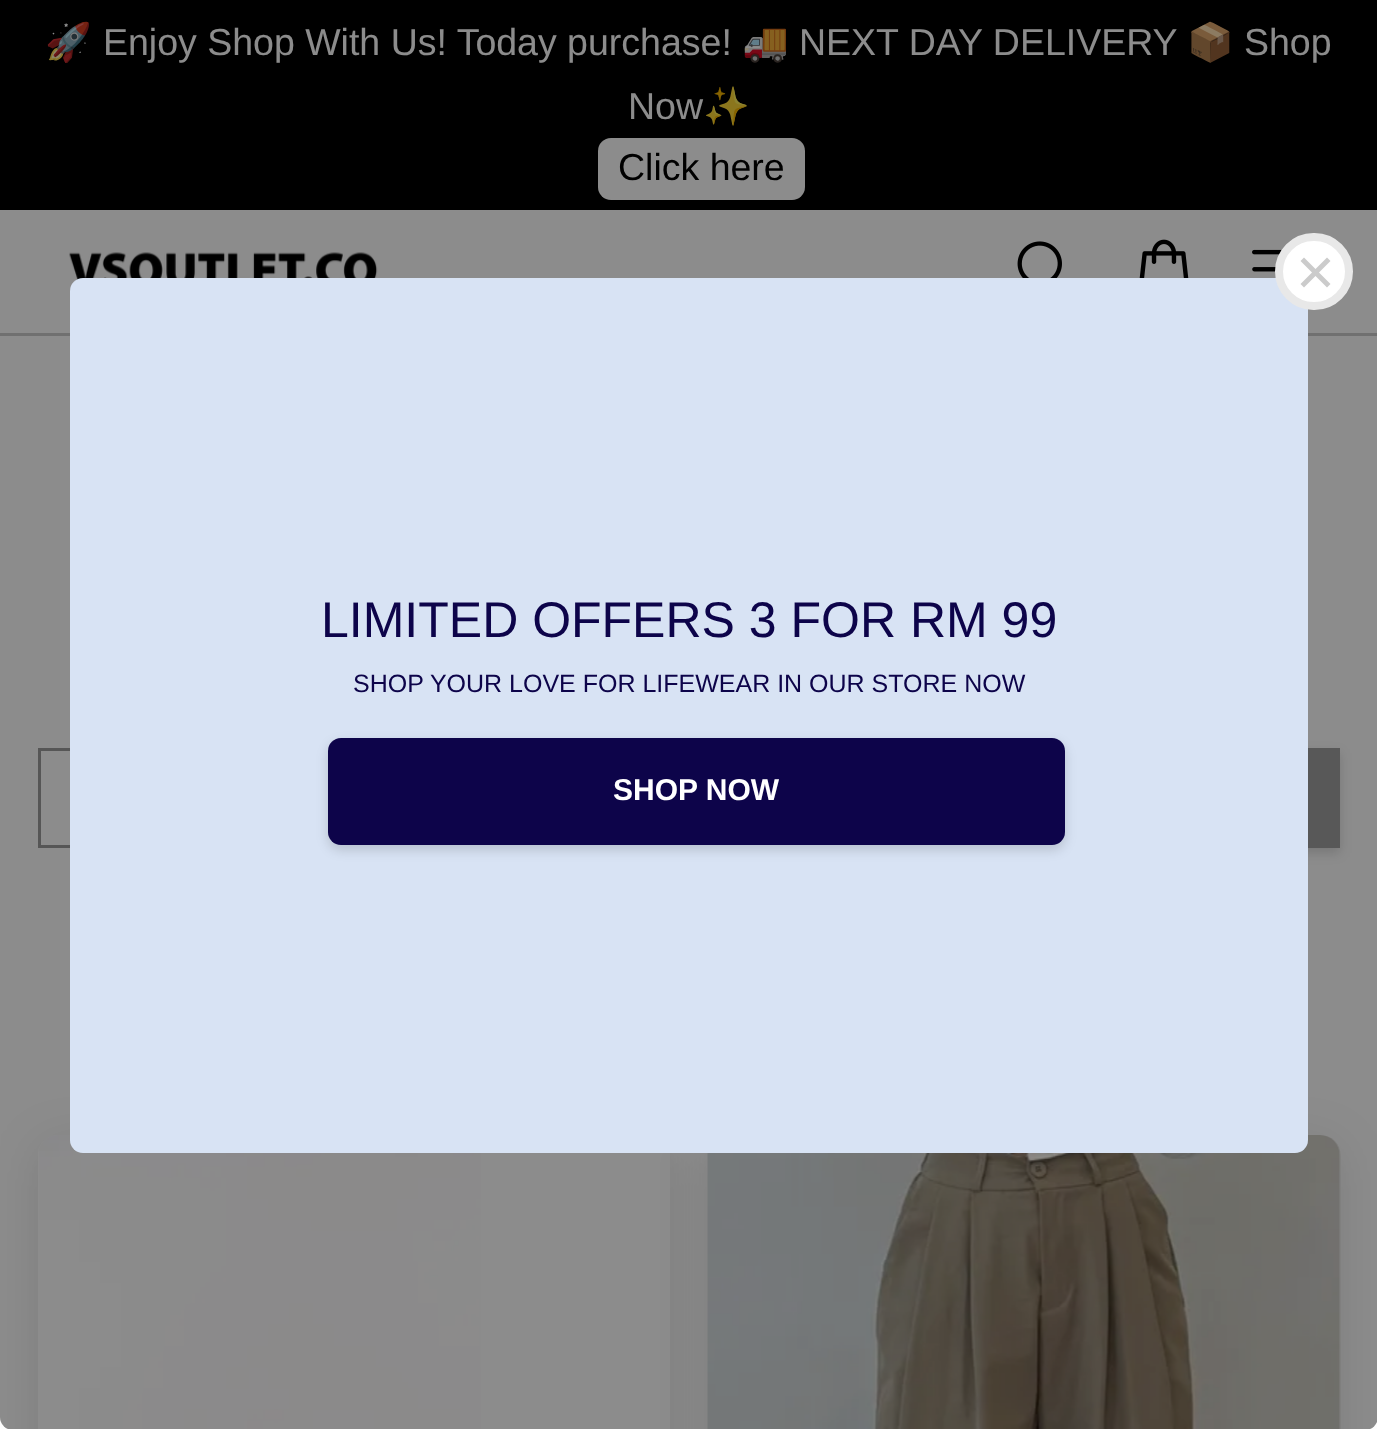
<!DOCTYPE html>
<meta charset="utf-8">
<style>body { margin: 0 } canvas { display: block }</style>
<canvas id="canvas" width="1377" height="1429"></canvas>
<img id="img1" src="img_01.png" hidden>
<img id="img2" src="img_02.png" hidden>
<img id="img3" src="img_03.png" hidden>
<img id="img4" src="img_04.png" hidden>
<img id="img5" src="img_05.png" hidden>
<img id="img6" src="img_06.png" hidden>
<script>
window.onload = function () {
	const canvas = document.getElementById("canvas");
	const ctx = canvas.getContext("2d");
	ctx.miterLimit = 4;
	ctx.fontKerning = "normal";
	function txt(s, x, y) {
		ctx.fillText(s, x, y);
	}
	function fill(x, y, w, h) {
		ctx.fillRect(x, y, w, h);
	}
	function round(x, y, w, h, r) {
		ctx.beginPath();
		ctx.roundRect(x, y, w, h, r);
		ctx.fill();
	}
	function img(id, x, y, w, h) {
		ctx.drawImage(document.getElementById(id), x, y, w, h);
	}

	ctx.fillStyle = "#FFFFFF";
	fill(0, 0, 1377, 1429);
	ctx.fillStyle = "#000000";
	fill(0, 0, 1377, 210);
	ctx.fillStyle = "#FFFFFF";
	round(598, 138, 207, 62, 13);
	ctx.fillStyle = "#CCCCCC";
	fill(0, 333, 1377, 3);
	img("img1", 69, 252, 309, 28);
	img("img2", 1017, 241, 45, 37);
	img("img3", 1139, 239, 50, 39);
	img("img4", 1252, 249, 31, 23);
	ctx.strokeStyle = "#9D9D9D";
	ctx.lineWidth = 3;
	ctx.strokeRect(39.5, 749.5, 1157, 97);
	ctx.fillStyle = "rgba(0, 0, 0, 0.15)";
	ctx.filter = "blur(6px)";
	ctx.beginPath();
	ctx.rect(1198, 753, 142, 100);
	ctx.fill();
	ctx.filter = "none";
	ctx.fillStyle = "#A0A0A0";
	fill(1308, 748, 32, 100);
	ctx.save();
	ctx.beginPath();
	ctx.moveTo(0, 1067);
	ctx.lineTo(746, 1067);
	ctx.lineTo(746, 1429);
	ctx.lineTo(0, 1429);
	ctx.closePath();
	ctx.moveTo(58, 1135);
	ctx.lineTo(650, 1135);
	ctx.bezierCurveTo(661, 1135, 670, 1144, 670, 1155);
	ctx.lineTo(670, 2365);
	ctx.bezierCurveTo(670, 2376, 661, 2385, 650, 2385);
	ctx.lineTo(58, 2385);
	ctx.bezierCurveTo(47, 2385, 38, 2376, 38, 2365);
	ctx.lineTo(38, 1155);
	ctx.bezierCurveTo(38, 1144, 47, 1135, 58, 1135);
	ctx.closePath();
	ctx.clip("evenodd");
	ctx.fillStyle = "rgba(0, 0, 0, 0.1)";
	ctx.filter = "blur(25px)";
	ctx.beginPath();
	ctx.roundRect(38, 1143, 632, 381, 20);
	ctx.fill();
	ctx.filter = "none";
	ctx.restore();
	img("img5", 39, 1135, 442, 294);
	ctx.fillStyle = "rgba(0, 0, 0, 0.1)";
	ctx.filter = "blur(25px)";
	ctx.beginPath();
	ctx.roundRect(708, 1143, 632, 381, 20);
	ctx.fill();
	ctx.filter = "none";
	img("img6", 707, 1135, 634, 294);
	ctx.font = "37.5px Noto Color Emoji";
	ctx.fillStyle = "#FFFFFF";
	txt("🚀", 45, 55);
	ctx.font = "37.5px Liberation Sans";
	txt("Enjoy Shop With Us! Today purchase!", 103, 55);
	ctx.font = "37.5px Noto Color Emoji";
	txt("🚚", 742, 55);
	ctx.font = "37.5px Liberation Sans";
	txt("NEXT DAY DELIVERY", 799, 55);
	ctx.font = "37.5px Noto Color Emoji";
	txt("📦", 1187, 55);
	ctx.font = "37.5px Liberation Sans";
	txt("Shop", 1244, 55);
	txt("Now", 628, 119);
	ctx.font = "37.5px Noto Color Emoji";
	txt("✨", 703, 119);
	ctx.font = "37.5px Liberation Sans";
	ctx.fillStyle = "#000000";
	txt("Click here", 618, 180);
	ctx.fillStyle = "rgba(0, 0, 0, 0.45)";
	round(0, 0, 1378, 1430, 13);
	ctx.fillStyle = "#D8E3F4";
	round(70, 278, 1238, 875, 13);
	ctx.fillStyle = "#FFFFFF";
	ctx.beginPath();
	ctx.roundRect(1279, 237, 70, 69, 34.5);
	ctx.fill();
	ctx.strokeStyle = "#E8E8E8";
	ctx.lineWidth = 8;
	ctx.stroke();
	ctx.fillStyle = "#CBCBCB";
	ctx.beginPath();
	ctx.moveTo(1327, 257.5);
	ctx.lineTo(1330.5, 261);
	ctx.lineTo(1304, 287.5);
	ctx.lineTo(1300.5, 284);
	ctx.closePath();
	ctx.fill();
	ctx.beginPath();
	ctx.moveTo(1300.5, 261);
	ctx.lineTo(1304, 257.5);
	ctx.lineTo(1330.5, 284);
	ctx.lineTo(1327, 287.5);
	ctx.closePath();
	ctx.fill();
	ctx.font = "50px Liberation Sans";
	ctx.fillStyle = "#0D044A";
	txt("LIMITED OFFERS 3 FOR RM 99", 321, 637);
	ctx.font = "25px Liberation Sans";
	txt("SHOP YOUR LOVE FOR LIFEWEAR IN OUR STORE NOW", 353, 692);
	ctx.fillStyle = "rgba(0, 0, 0, 0.15)";
	ctx.filter = "blur(6px)";
	ctx.beginPath();
	ctx.roundRect(328, 743, 737, 107, 13);
	ctx.fill();
	ctx.filter = "none";
	ctx.fillStyle = "#0D044A";
	round(328, 738, 737, 107, 13);
	ctx.font = "bold 30px Liberation Sans";
	ctx.fillStyle = "#FFFFFF";
	txt("SHOP NOW", 613, 800);
};
</script>
